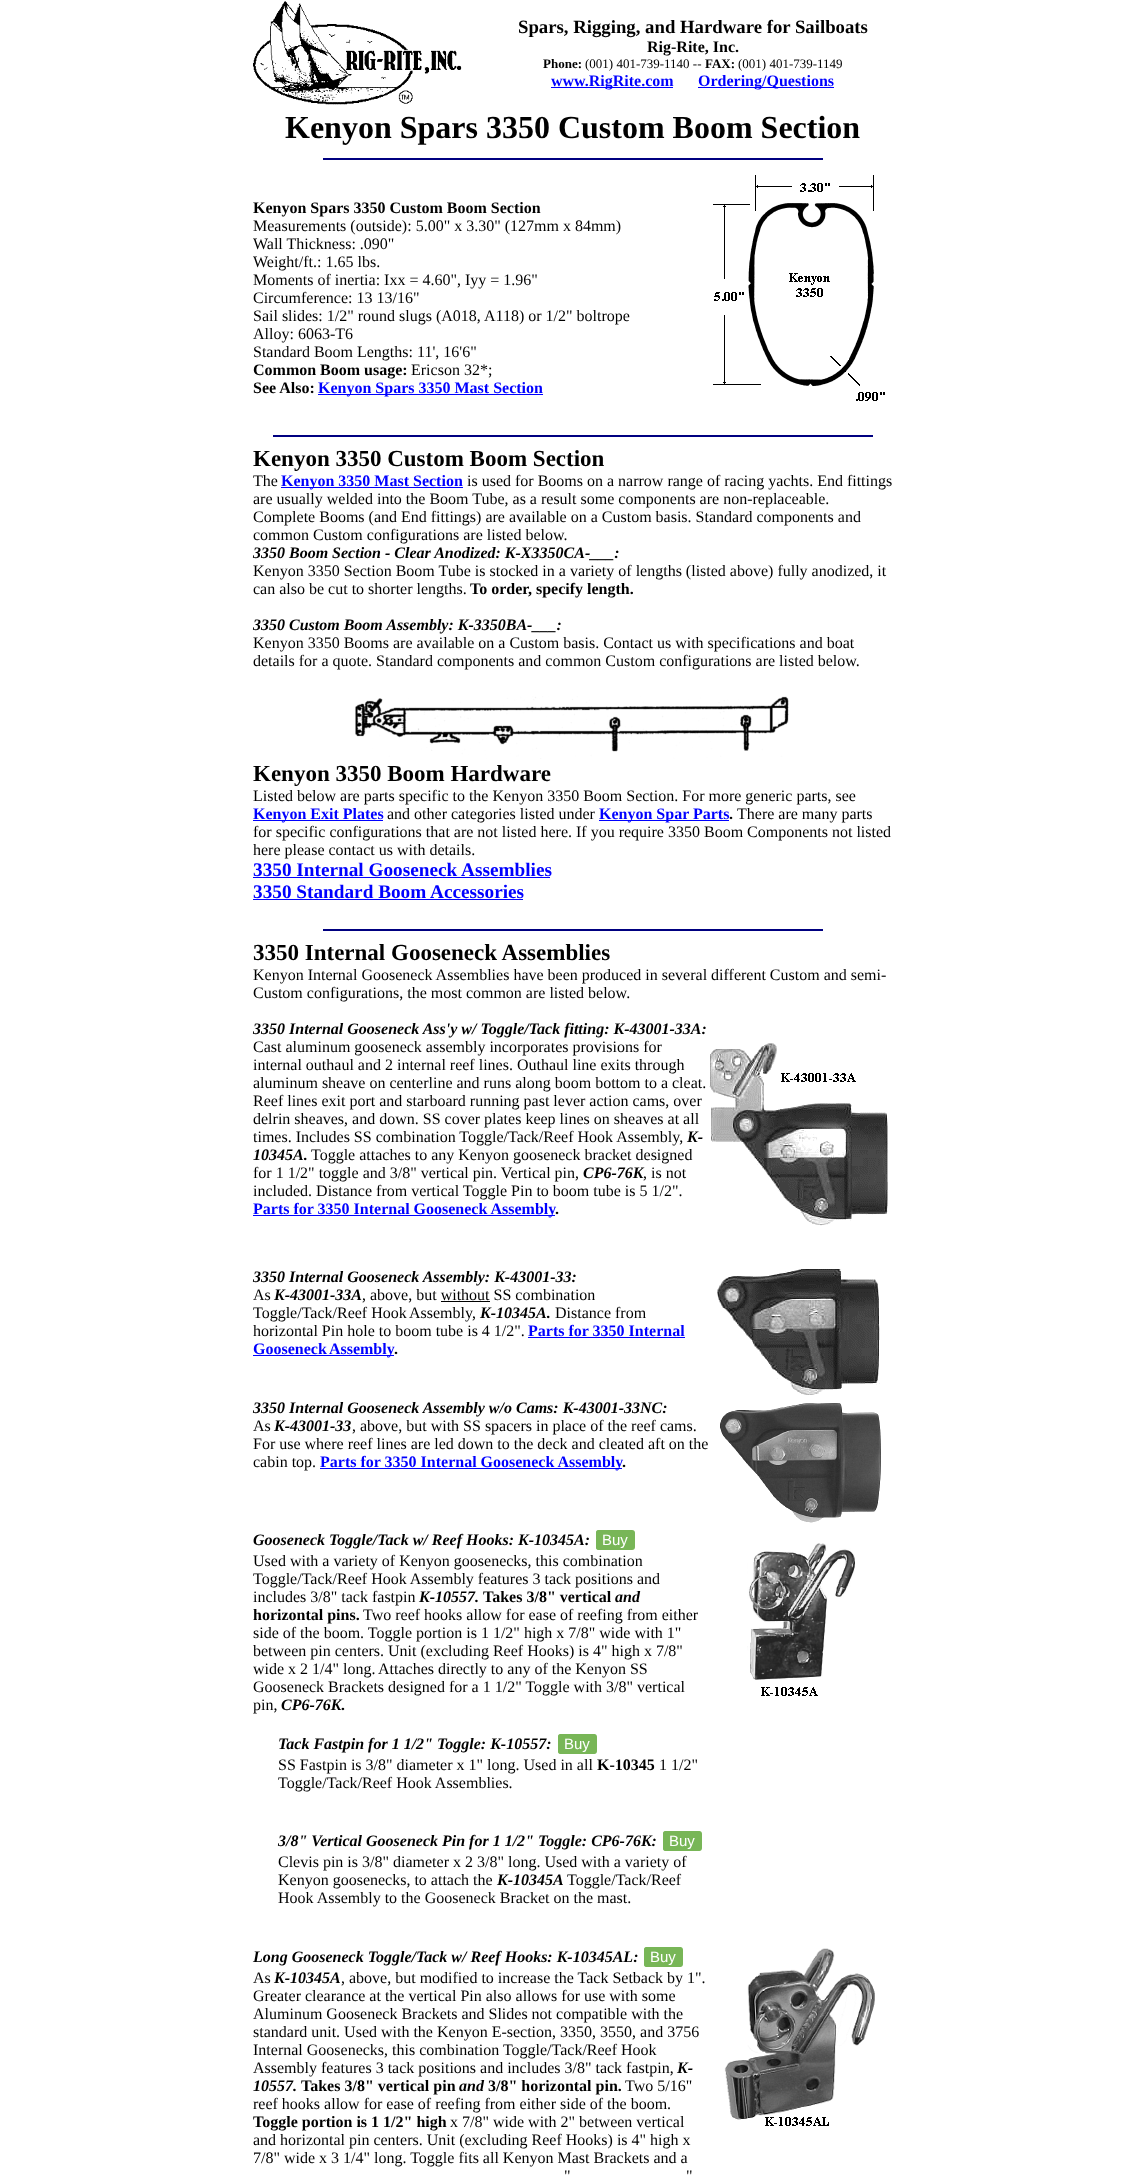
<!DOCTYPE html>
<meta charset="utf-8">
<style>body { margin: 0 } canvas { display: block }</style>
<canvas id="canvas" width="1145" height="2177"></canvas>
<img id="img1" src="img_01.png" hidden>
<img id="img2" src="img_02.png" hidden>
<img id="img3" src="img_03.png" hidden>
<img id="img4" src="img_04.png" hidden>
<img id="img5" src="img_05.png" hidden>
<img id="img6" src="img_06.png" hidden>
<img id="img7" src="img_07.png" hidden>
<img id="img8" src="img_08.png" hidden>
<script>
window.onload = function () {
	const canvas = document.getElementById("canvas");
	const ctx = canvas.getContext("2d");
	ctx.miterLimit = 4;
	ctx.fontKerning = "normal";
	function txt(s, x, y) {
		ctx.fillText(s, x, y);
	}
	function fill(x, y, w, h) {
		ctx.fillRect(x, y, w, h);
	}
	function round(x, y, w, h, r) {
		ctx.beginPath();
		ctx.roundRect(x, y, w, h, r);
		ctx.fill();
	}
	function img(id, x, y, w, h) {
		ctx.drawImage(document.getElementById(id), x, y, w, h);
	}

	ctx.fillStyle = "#FFFFFF";
	fill(0, 0, 1145, 2177);
	img("img1", 253, 1, 209, 104);
	ctx.fillStyle = "#0000FF";
	fill(551, 87, 122, 1);
	fill(698, 87, 136, 1);
	ctx.fillStyle = "#000080";
	fill(323, 158, 500, 2);
	ctx.fillStyle = "#0000FF";
	fill(318, 394, 225, 1);
	img("img2", 713, 175, 172, 226);
	ctx.fillStyle = "#000080";
	fill(273, 435, 600, 2);
	ctx.fillStyle = "#0000FF";
	fill(281, 487, 182, 1);
	img("img3", 355, 696, 434, 63);
	fill(253, 820, 130, 1);
	fill(599, 820, 130, 1);
	fill(253, 877, 297, 1);
	fill(253, 899, 270, 1);
	ctx.fillStyle = "#000080";
	fill(323, 929, 500, 2);
	ctx.fillStyle = "#0000FF";
	fill(253, 1215, 302, 1);
	img("img4", 709, 1043, 179, 183);
	ctx.fillStyle = "#000000";
	fill(441, 1301, 49, 1);
	ctx.fillStyle = "#0000FF";
	fill(528, 1337, 157, 1);
	fill(253, 1355, 141, 1);
	img("img5", 717, 1269, 163, 126);
	fill(320, 1468, 302, 1);
	img("img6", 720, 1403, 161, 120);
	ctx.fillStyle = "#78B657";
	round(596, 1530, 39, 20, 3);
	round(596, 1530, 37, 20, 3);
	img("img7", 747, 1543, 108, 153);
	round(558, 1734, 39, 20, 3);
	round(558, 1734, 38, 20, 3);
	round(663, 1831, 39, 20, 3);
	round(663, 1831, 38, 20, 3);
	round(644, 1947, 39, 20, 3);
	round(644, 1947, 38, 20, 3);
	img("img8", 724, 1948, 151, 178);
	ctx.font = "bold 18.75px Liberation Serif";
	ctx.fillStyle = "#000000";
	txt("Spars, Rigging, and Hardware for Sailboats", 518, 33);
	ctx.font = "bold 16px Liberation Serif";
	txt("Rig-Rite, Inc.", 647, 52);
	ctx.font = "bold 13px Liberation Serif";
	txt("Phone:", 543, 68);
	ctx.font = "13px Liberation Serif";
	txt("(001) 401-739-1140 --", 585, 68);
	ctx.font = "bold 13px Liberation Serif";
	txt("FAX:", 705, 68);
	ctx.font = "13px Liberation Serif";
	txt("(001) 401-739-1149", 738, 68);
	ctx.font = "bold 16px Liberation Serif";
	ctx.fillStyle = "#0000FF";
	txt("www.RigRite.com", 551, 86);
	txt("Ordering/Questions", 698, 86);
	ctx.font = "bold 32px Liberation Serif";
	ctx.fillStyle = "#000000";
	txt("Kenyon Spars 3350 Custom Boom Section", 285, 138);
	ctx.font = "bold 16px Liberation Serif";
	txt("Kenyon Spars 3350 Custom Boom Section", 253, 213);
	ctx.font = "16px Liberation Serif";
	txt("Measurements (outside): 5.00\" x 3.30\" (127mm x 84mm)", 253, 231);
	txt("Wall Thickness: .090\"", 253, 249);
	txt("Weight/ft.: 1.65 lbs.", 253, 267);
	txt("Moments of inertia: Ixx = 4.60\", Iyy = 1.96\"", 253, 285);
	txt("Circumference: 13 13/16\"", 253, 303);
	txt("Sail slides: 1/2\" round slugs (A018, A118) or 1/2\" boltrope", 253, 321);
	txt("Alloy: 6063-T6", 253, 339);
	txt("Standard Boom Lengths: 11', 16'6\"", 253, 357);
	ctx.font = "bold 16px Liberation Serif";
	txt("Common Boom usage:", 253, 375);
	ctx.font = "16px Liberation Serif";
	txt("Ericson 32*;", 411, 375);
	ctx.font = "bold 16px Liberation Serif";
	txt("See Also:", 253, 393);
	ctx.fillStyle = "#0000FF";
	txt("Kenyon Spars 3350 Mast Section", 318, 393);
	ctx.font = "bold 23px Liberation Serif";
	ctx.fillStyle = "#000000";
	txt("Kenyon 3350 Custom Boom Section", 253, 466);
	ctx.font = "16px Liberation Serif";
	txt("The", 253, 486);
	ctx.font = "bold 16px Liberation Serif";
	ctx.fillStyle = "#0000FF";
	txt("Kenyon 3350 Mast Section", 281, 486);
	ctx.font = "16px Liberation Serif";
	ctx.fillStyle = "#000000";
	txt("is used for Booms on a narrow range of racing yachts. End fittings", 467, 486);
	txt("are usually welded into the Boom Tube, as a result some components are non-replaceable.", 253, 504);
	txt("Complete Booms (and End fittings) are available on a Custom basis. Standard components and", 253, 522);
	txt("common Custom configurations are listed below.", 253, 540);
	ctx.font = "italic bold 16px Liberation Serif";
	txt("3350 Boom Section - Clear Anodized: K-X3350CA-___:", 253, 558);
	ctx.font = "16px Liberation Serif";
	txt("Kenyon 3350 Section Boom Tube is stocked in a variety of lengths (listed above) fully anodized, it", 253, 576);
	txt("can also be cut to shorter lengths.", 253, 594);
	ctx.font = "bold 16px Liberation Serif";
	txt("To order, specify length.", 470, 594);
	ctx.font = "italic bold 16px Liberation Serif";
	txt("3350 Custom Boom Assembly: K-3350BA-___:", 253, 630);
	ctx.font = "16px Liberation Serif";
	txt("Kenyon 3350 Booms are available on a Custom basis. Contact us with specifications and boat", 253, 648);
	txt("details for a quote. Standard components and common Custom configurations are listed below.", 253, 666);
	ctx.font = "bold 23px Liberation Serif";
	txt("Kenyon 3350 Boom Hardware", 253, 781);
	ctx.font = "16px Liberation Serif";
	txt("Listed below are parts specific to the Kenyon 3350 Boom Section. For more generic parts, see", 253, 801);
	ctx.font = "bold 16px Liberation Serif";
	ctx.fillStyle = "#0000FF";
	txt("Kenyon Exit Plates", 253, 819);
	ctx.font = "16px Liberation Serif";
	ctx.fillStyle = "#000000";
	txt("and other categories listed under", 387, 819);
	ctx.font = "bold 16px Liberation Serif";
	ctx.fillStyle = "#0000FF";
	txt("Kenyon Spar Parts", 599, 819);
	ctx.fillStyle = "#000000";
	txt(".", 729, 819);
	ctx.font = "16px Liberation Serif";
	txt("There are many parts", 737, 819);
	txt("for specific configurations that are not listed here. If you require 3350 Boom Components not listed", 253, 837);
	txt("here please contact us with details.", 253, 855);
	ctx.font = "bold 19.25px Liberation Serif";
	ctx.fillStyle = "#0000FF";
	txt("3350 Internal Gooseneck Assemblies", 253, 876);
	txt("3350 Standard Boom Accessories", 253, 898);
	ctx.font = "bold 23px Liberation Serif";
	ctx.fillStyle = "#000000";
	txt("3350 Internal Gooseneck Assemblies", 253, 960);
	ctx.font = "16px Liberation Serif";
	txt("Kenyon Internal Gooseneck Assemblies have been produced in several different Custom and semi-", 253, 980);
	txt("Custom configurations, the most common are listed below.", 253, 998);
	ctx.font = "italic bold 16px Liberation Serif";
	txt("3350 Internal Gooseneck Ass'y w/ Toggle/Tack fitting: K-43001-33A:", 253, 1034);
	ctx.font = "16px Liberation Serif";
	txt("Cast aluminum gooseneck assembly incorporates provisions for", 253, 1052);
	txt("internal outhaul and 2 internal reef lines. Outhaul line exits through", 253, 1070);
	txt("aluminum sheave on centerline and runs along boom bottom to a cleat.", 253, 1088);
	txt("Reef lines exit port and starboard running past lever action cams, over", 253, 1106);
	txt("delrin sheaves, and down. SS cover plates keep lines on sheaves at all", 253, 1124);
	txt("times. Includes SS combination Toggle/Tack/Reef Hook Assembly,", 253, 1142);
	ctx.font = "italic bold 16px Liberation Serif";
	txt("K-", 687, 1142);
	txt("10345A.", 253, 1160);
	ctx.font = "16px Liberation Serif";
	txt("Toggle attaches to any Kenyon gooseneck bracket designed", 311, 1160);
	txt("for 1 1/2\" toggle and 3/8\" vertical pin. Vertical pin,", 253, 1178);
	ctx.font = "italic bold 16px Liberation Serif";
	txt("CP6-76K", 583, 1178);
	ctx.font = "16px Liberation Serif";
	txt(", is not", 643, 1178);
	txt("included. Distance from vertical Toggle Pin to boom tube is 5 1/2\".", 253, 1196);
	ctx.font = "bold 16px Liberation Serif";
	ctx.fillStyle = "#0000FF";
	txt("Parts for 3350 Internal Gooseneck Assembly", 253, 1214);
	ctx.fillStyle = "#000000";
	txt(".", 555, 1214);
	ctx.font = "italic bold 16px Liberation Serif";
	txt("3350 Internal Gooseneck Assembly: K-43001-33:", 253, 1282);
	ctx.font = "16px Liberation Serif";
	txt("As", 253, 1300);
	ctx.font = "italic bold 16px Liberation Serif";
	txt("K-43001-33A", 274, 1300);
	ctx.font = "16px Liberation Serif";
	txt(", above, but without SS combination", 362, 1300);
	txt("Toggle/Tack/Reef Hook", 253, 1318);
	txt("Assembly,", 409, 1318);
	ctx.font = "italic bold 16px Liberation Serif";
	txt("K-10345A.", 480, 1318);
	ctx.font = "16px Liberation Serif";
	txt("Distance from", 555, 1318);
	txt("horizontal Pin hole to boom tube is 4 1/2\".", 253, 1336);
	ctx.font = "bold 16px Liberation Serif";
	ctx.fillStyle = "#0000FF";
	txt("Parts for 3350 Internal", 528, 1336);
	ctx.wordSpacing = "-1px";
	txt("Gooseneck Assembly", 253, 1354);
	ctx.wordSpacing = "0px";
	ctx.fillStyle = "#000000";
	txt(".", 394, 1354);
	ctx.font = "italic bold 16px Liberation Serif";
	txt("3350 Internal Gooseneck Assembly w/o Cams: K-43001-33NC:", 253, 1413);
	ctx.font = "16px Liberation Serif";
	txt("As", 253, 1431);
	ctx.font = "italic bold 16px Liberation Serif";
	txt("K-43001-33", 274, 1431);
	ctx.font = "16px Liberation Serif";
	txt(", above, but with SS spacers in place of the reef cams.", 352, 1431);
	txt("For use where reef lines are led down to the deck and cleated aft on the", 253, 1449);
	txt("cabin top.", 253, 1467);
	ctx.font = "bold 16px Liberation Serif";
	ctx.fillStyle = "#0000FF";
	txt("Parts for 3350 Internal Gooseneck Assembly", 320, 1467);
	ctx.fillStyle = "#000000";
	txt(".", 622, 1467);
	ctx.font = "italic bold 16px Liberation Serif";
	txt("Gooseneck Toggle/Tack w/ Reef Hooks: K-10345A:", 253, 1545);
	ctx.font = "15px Liberation Sans";
	ctx.fillStyle = "#FFFFFF";
	txt("Buy", 602, 1545);
	ctx.font = "16px Liberation Serif";
	ctx.fillStyle = "#000000";
	txt("Used with a variety of Kenyon goosenecks, this combination", 253, 1566);
	txt("Toggle/Tack/Reef Hook Assembly features 3 tack positions and", 253, 1584);
	txt("includes 3/8\" tack fastpin", 253, 1602);
	ctx.font = "italic bold 16px Liberation Serif";
	txt("K-10557.", 419, 1602);
	ctx.font = "bold 16px Liberation Serif";
	txt("Takes 3/8\" vertical", 483, 1602);
	ctx.font = "italic bold 16px Liberation Serif";
	txt("and", 615, 1602);
	ctx.font = "bold 16px Liberation Serif";
	txt("horizontal pins.", 253, 1620);
	ctx.font = "16px Liberation Serif";
	txt("Two reef hooks allow for ease of reefing from either", 363, 1620);
	txt("side of the boom. Toggle portion is 1 1/2\" high x 7/8\" wide with 1\"", 253, 1638);
	txt("between pin centers. Unit (excluding Reef Hooks) is 4\" high x 7/8\"", 253, 1656);
	txt("wide x 2 1/4\" long.", 253, 1674);
	txt("Attaches directly to any of the Kenyon SS", 378, 1674);
	txt("Gooseneck Brackets designed for a 1 1/2\" Toggle with 3/8\" vertical", 253, 1692);
	txt("pin,", 253, 1710);
	ctx.font = "italic bold 16px Liberation Serif";
	txt("CP6-76K.", 281, 1710);
	txt("Tack Fastpin for 1 1/2\" Toggle: K-10557:", 278, 1749);
	ctx.font = "15px Liberation Sans";
	ctx.fillStyle = "#FFFFFF";
	txt("Buy", 564, 1749);
	ctx.font = "16px Liberation Serif";
	ctx.fillStyle = "#000000";
	txt("SS Fastpin is 3/8\" diameter x 1\" long. Used in all", 278, 1770);
	ctx.font = "bold 16px Liberation Serif";
	txt("K-10345", 597, 1770);
	ctx.font = "16px Liberation Serif";
	txt("1 1/2\"", 659, 1770);
	txt("Toggle/Tack/Reef Hook Assemblies.", 278, 1788);
	ctx.font = "italic bold 16px Liberation Serif";
	txt("3/8\" Vertical Gooseneck Pin for 1 1/2\" Toggle: CP6-76K:", 278, 1846);
	ctx.font = "15px Liberation Sans";
	ctx.fillStyle = "#FFFFFF";
	txt("Buy", 669, 1846);
	ctx.font = "16px Liberation Serif";
	ctx.fillStyle = "#000000";
	txt("Clevis pin is 3/8\" diameter x 2 3/8\" long. Used with a variety of", 278, 1867);
	txt("Kenyon goosenecks, to attach the", 278, 1885);
	ctx.font = "italic bold 16px Liberation Serif";
	txt("K-10345A", 497, 1885);
	ctx.font = "16px Liberation Serif";
	txt("Toggle/Tack/Reef", 567, 1885);
	txt("Hook Assembly to the Gooseneck Bracket on the mast.", 278, 1903);
	ctx.font = "italic bold 16px Liberation Serif";
	txt("Long Gooseneck Toggle/Tack w/ Reef Hooks: K-10345AL:", 253, 1962);
	ctx.font = "15px Liberation Sans";
	ctx.fillStyle = "#FFFFFF";
	txt("Buy", 650, 1962);
	ctx.font = "16px Liberation Serif";
	ctx.fillStyle = "#000000";
	txt("As", 253, 1983);
	ctx.font = "italic bold 16px Liberation Serif";
	txt("K-10345A", 274, 1983);
	ctx.font = "16px Liberation Serif";
	txt(", above, but modified to increase the Tack Setback by 1\".", 341, 1983);
	txt("Greater clearance at the vertical Pin also allows for use with some", 253, 2001);
	txt("Aluminum Gooseneck Brackets and Slides not compatible with the", 253, 2019);
	txt("standard unit. Used with the Kenyon E-section, 3350, 3550, and 3756", 253, 2037);
	txt("Internal Goosenecks, this combination Toggle/Tack/Reef Hook", 253, 2055);
	txt("Assembly features 3 tack positions and includes 3/8\" tack fastpin,", 253, 2073);
	ctx.font = "italic bold 16px Liberation Serif";
	txt("K-", 677, 2073);
	txt("10557.", 253, 2091);
	ctx.font = "bold 16px Liberation Serif";
	txt("Takes 3/8\" vertical pin", 301, 2091);
	ctx.font = "italic bold 16px Liberation Serif";
	txt("and", 459, 2091);
	ctx.font = "bold 16px Liberation Serif";
	txt("3/8\" horizontal pin.", 488, 2091);
	ctx.font = "16px Liberation Serif";
	txt("Two 5/16\"", 625, 2091);
	txt("reef hooks allow for ease of reefing from either side of the boom.", 253, 2109);
	ctx.font = "bold 16px Liberation Serif";
	txt("Toggle portion is 1 1/2\" high", 253, 2127);
	ctx.font = "16px Liberation Serif";
	txt("x 7/8\" wide with 2\" between vertical", 450, 2127);
	txt("and horizontal pin centers. Unit (excluding Reef Hooks) is 4\" high x", 253, 2145);
	txt("7/8\" wide x 3 1/4\" long. Toggle fits all Kenyon Mast Brackets and a", 253, 2163);
	txt("\"", 564, 2181);
	txt("\"", 686, 2181);
};
</script>
